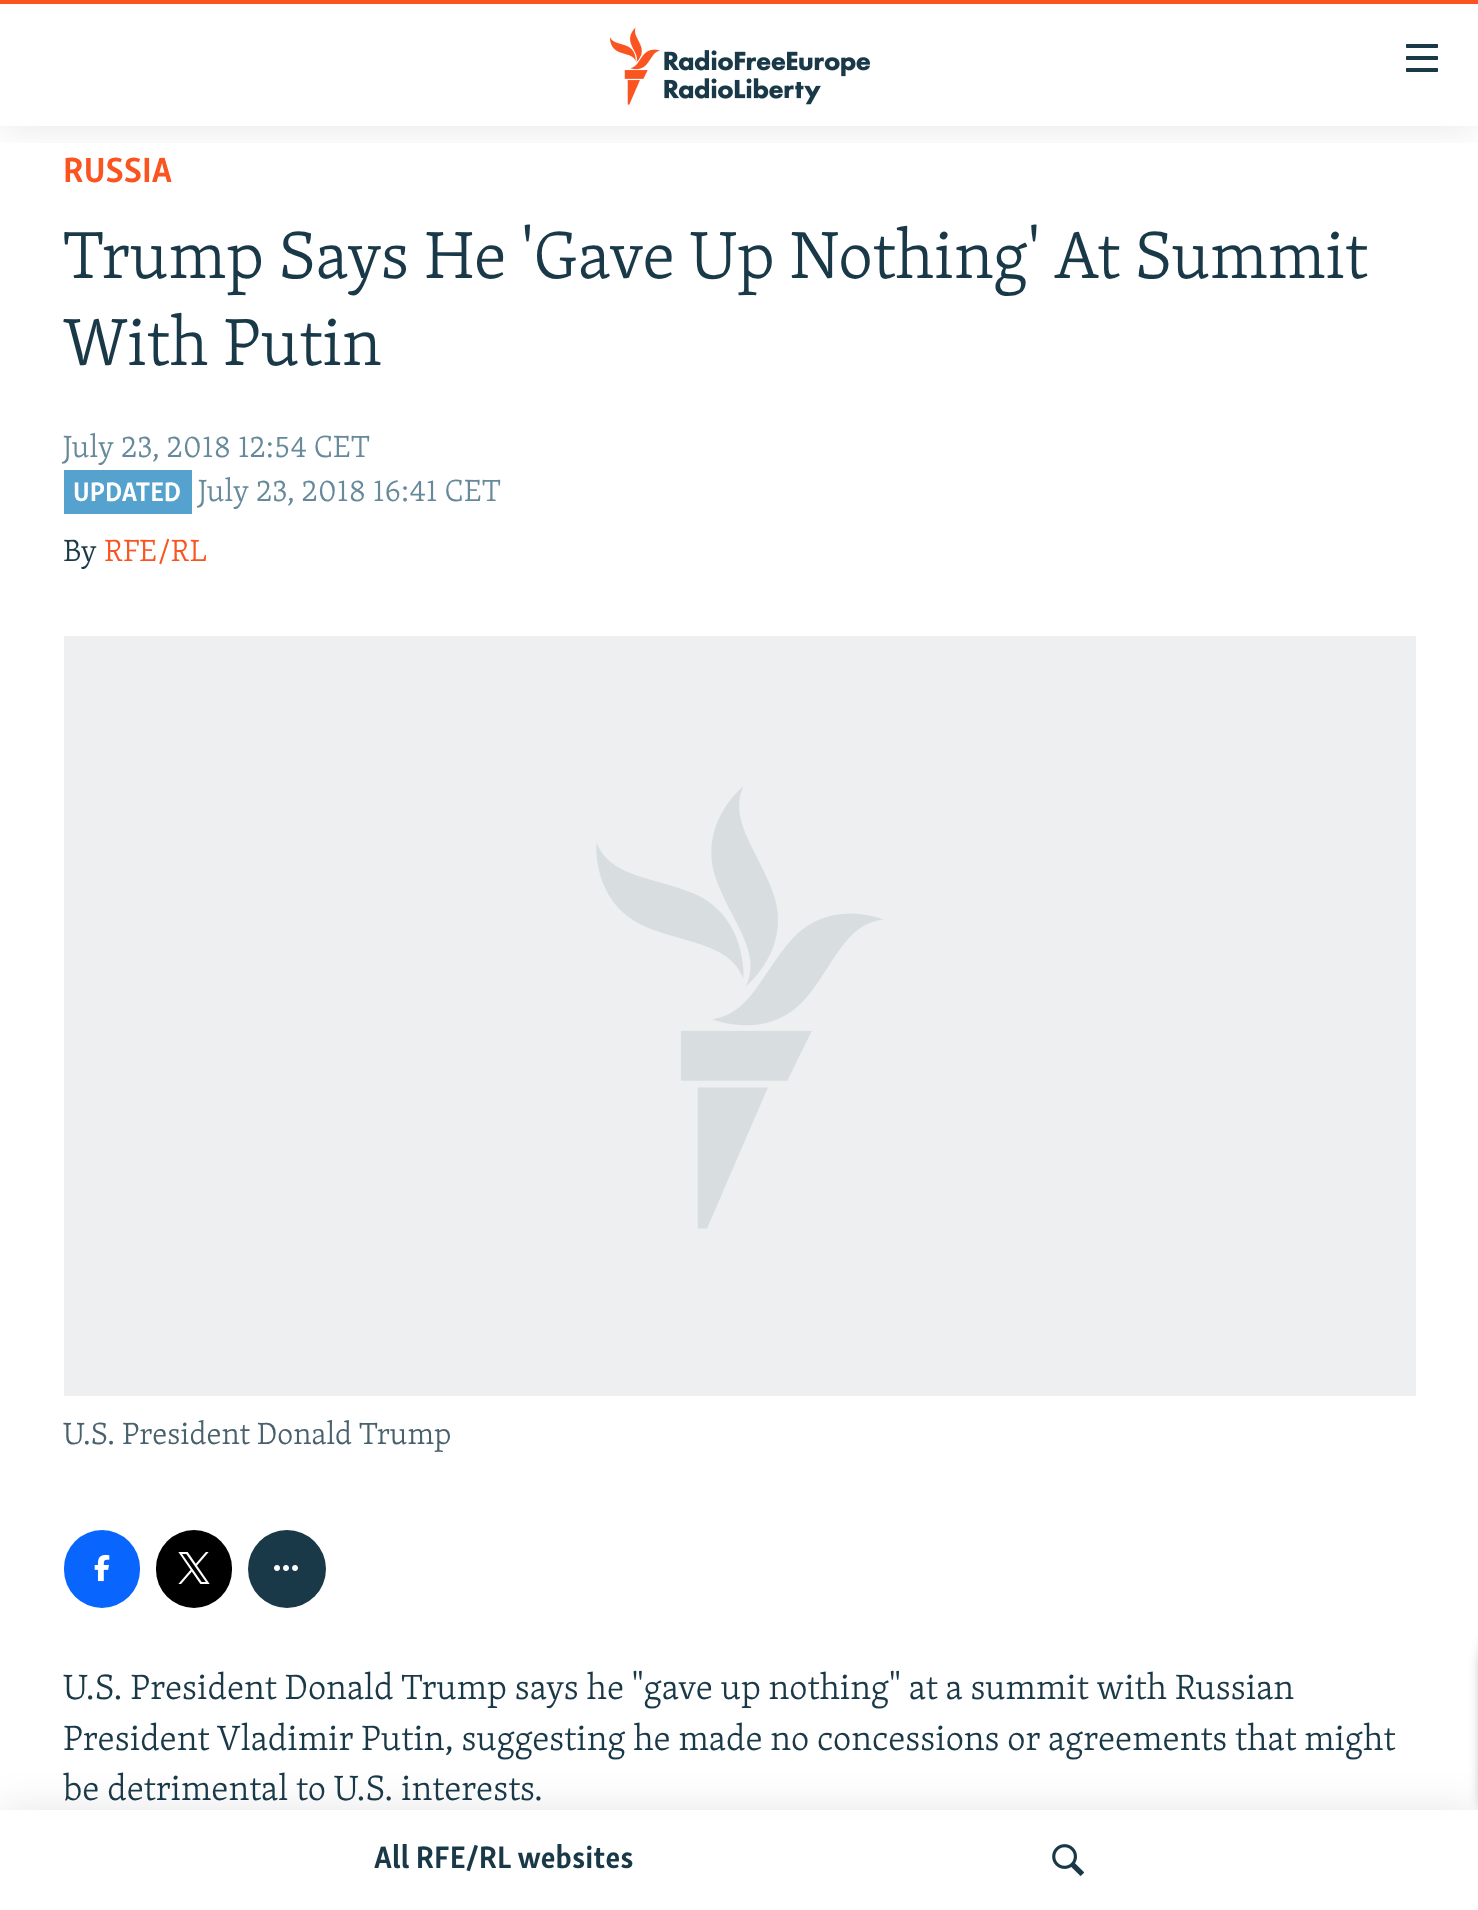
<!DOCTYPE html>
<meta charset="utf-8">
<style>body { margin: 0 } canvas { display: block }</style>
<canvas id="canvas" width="1478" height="1910"></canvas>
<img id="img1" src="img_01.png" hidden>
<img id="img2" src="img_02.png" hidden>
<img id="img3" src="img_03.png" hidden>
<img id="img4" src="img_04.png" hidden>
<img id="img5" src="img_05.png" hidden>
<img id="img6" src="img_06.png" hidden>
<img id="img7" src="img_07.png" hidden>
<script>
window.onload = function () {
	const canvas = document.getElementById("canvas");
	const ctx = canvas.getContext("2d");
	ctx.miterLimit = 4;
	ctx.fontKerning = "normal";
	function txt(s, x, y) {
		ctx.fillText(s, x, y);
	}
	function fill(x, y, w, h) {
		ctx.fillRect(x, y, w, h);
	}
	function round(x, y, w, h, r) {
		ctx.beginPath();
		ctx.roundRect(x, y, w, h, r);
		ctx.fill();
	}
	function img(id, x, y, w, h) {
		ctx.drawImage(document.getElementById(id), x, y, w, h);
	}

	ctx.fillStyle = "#FFFFFF";
	fill(0, 0, 1478, 1910);
	ctx.fillStyle = "#55A2CE";
	fill(64, 470, 128, 44);
	ctx.fillStyle = "#EDEFF0";
	fill(64, 636, 1352, 760);
	img("img1", 596, 787, 287, 442);
	ctx.fillStyle = "#0866FF";
	round(64, 1530, 76, 78, 38);
	img("img2", 94, 1554, 16, 28);
	ctx.fillStyle = "#000000";
	round(156, 1530, 76, 78, 38);
	img("img3", 178, 1552, 32, 32);
	ctx.fillStyle = "#1A3948";
	ctx.beginPath();
	ctx.arc(287, 1569, 39, 0, Math.PI * 2);
	ctx.fill();
	img("img4", 274, 1565, 24, 6);
	ctx.fillStyle = "rgba(0, 0, 0, 0.85)";
	ctx.filter = "blur(10px)";
	ctx.beginPath();
	ctx.roundRect(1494, 1648, 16, 162, 2);
	ctx.fill();
	ctx.filter = "none";
	ctx.filter = "blur(10px)";
	ctx.beginPath();
	ctx.roundRect(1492, 1648, 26, 162, 10);
	ctx.fill();
	ctx.filter = "none";
	ctx.save();
	ctx.beginPath();
	ctx.rect(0, 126, 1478, 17);
	ctx.clip();
	ctx.fillStyle = "rgba(0, 0, 0, 0.1)";
	ctx.filter = "blur(20px)";
	ctx.beginPath();
	ctx.rect(0, 0, 1478, 126);
	ctx.fill();
	ctx.filter = "none";
	ctx.restore();
	ctx.fillStyle = "#FA5420";
	fill(0, 0, 1478, 4);
	img("img5", 610, 27, 260, 78);
	img("img6", 1406, 44, 32, 28);
	ctx.fillStyle = "rgba(0, 0, 0, 0.1)";
	ctx.filter = "blur(20px)";
	ctx.beginPath();
	ctx.rect(0, 1810, 1478, 100);
	ctx.fill();
	ctx.filter = "none";
	ctx.fillStyle = "#FFFFFF";
	fill(0, 1810, 1478, 100);
	img("img7", 1052, 1844, 32, 32);
	ctx.font = "bold 36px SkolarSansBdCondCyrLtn";
	ctx.fillStyle = "#FA5420";
	txt("RUSSIA", 63, 182);
	ctx.font = "300 68.4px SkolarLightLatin";
	ctx.fillStyle = "#1A3948";
	txt("Trump Says He 'Gave Up Nothing' At Summit", 63, 278);
	txt("With Putin", 63, 365);
	ctx.font = "300 31.5px SkolarLightLatin";
	ctx.fillStyle = "#678A9B";
	txt("July 23, 2018 12:54 CET", 63, 457);
	ctx.font = "bold 27.5px SkolarSansBdCondCyrLtn";
	ctx.fillStyle = "#FFFFFF";
	txt("UPDATED", 73, 501);
	ctx.font = "300 31.5px SkolarLightLatin";
	ctx.fillStyle = "#678A9B";
	txt("July 23, 2018 16:41 CET", 198, 501);
	ctx.fillStyle = "#1A3948";
	txt("By", 63, 561);
	ctx.fillStyle = "#FA5420";
	txt("RFE/RL", 104, 561);
	ctx.fillStyle = "#48616D";
	txt("U.S. President Donald Trump", 63, 1444);
	ctx.font = "300 36px SkolarLightLatin";
	ctx.fillStyle = "#1A3948";
	txt("U.S. President Donald Trump says he \"gave up nothing\" at a summit with Russian", 63, 1699);
	txt("President Vladimir Putin, suggesting he made no concessions or agreements that might", 63, 1750);
	txt("be detrimental to U.S. interests.", 63, 1800);
	ctx.font = "bold 32px SkolarSansBdCondCyrLtn";
	txt("All RFE/RL websites", 374, 1868);
};
</script>
